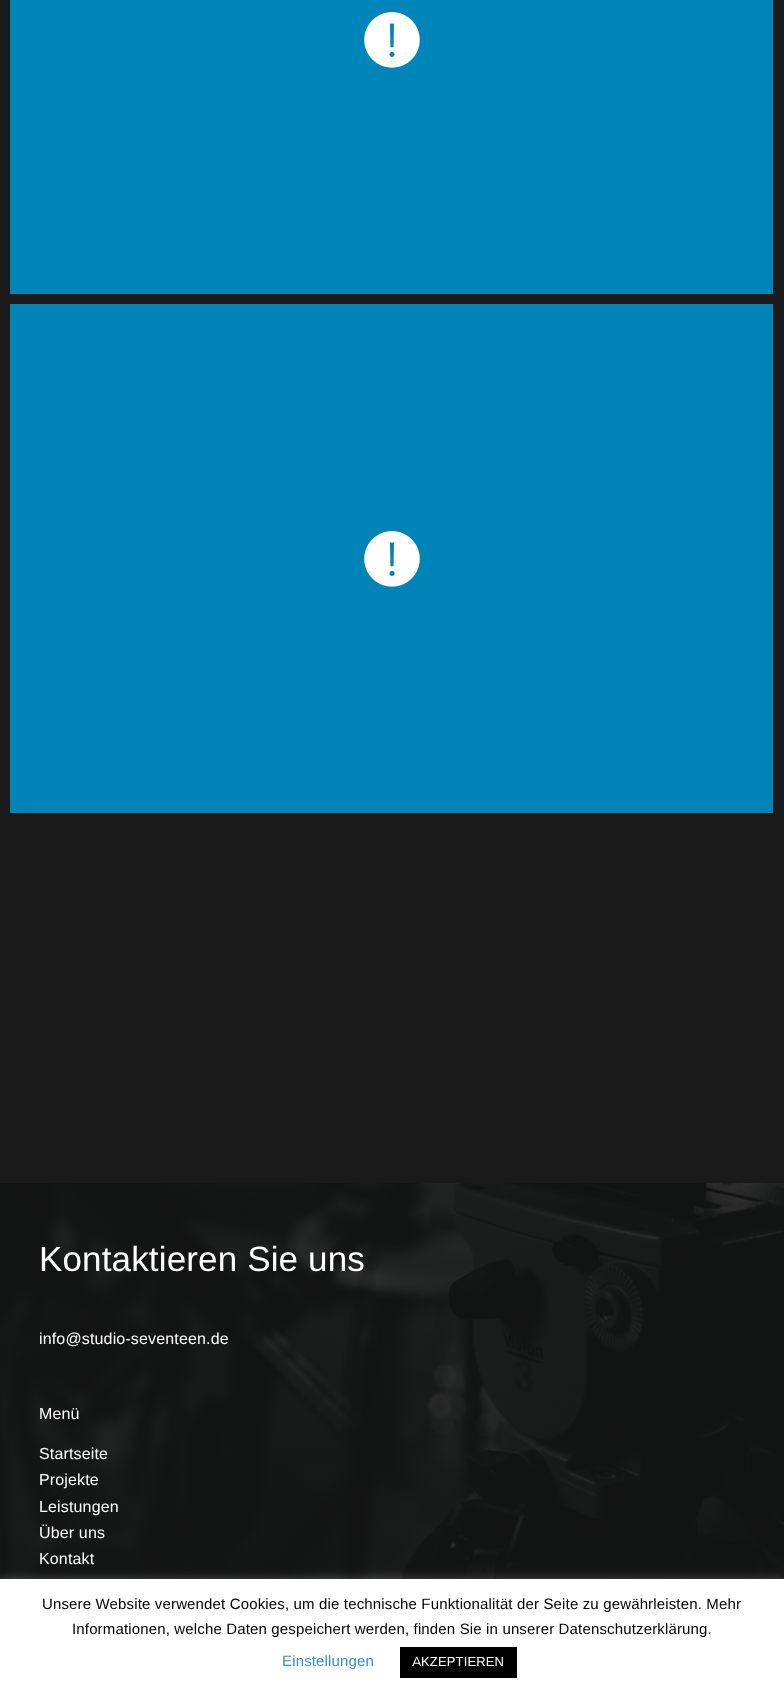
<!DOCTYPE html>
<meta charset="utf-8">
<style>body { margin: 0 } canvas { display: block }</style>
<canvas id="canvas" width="784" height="1695"></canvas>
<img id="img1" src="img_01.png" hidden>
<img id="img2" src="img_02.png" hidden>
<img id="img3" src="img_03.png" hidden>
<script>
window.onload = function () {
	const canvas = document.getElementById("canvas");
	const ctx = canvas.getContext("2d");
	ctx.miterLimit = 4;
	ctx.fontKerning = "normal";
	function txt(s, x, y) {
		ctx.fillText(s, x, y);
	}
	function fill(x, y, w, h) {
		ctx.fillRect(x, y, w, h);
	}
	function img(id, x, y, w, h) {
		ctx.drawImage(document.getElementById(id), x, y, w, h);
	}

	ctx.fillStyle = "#1A1A1A";
	fill(0, 0, 784, 1695);
	ctx.fillStyle = "#0085BA";
	fill(10, 0, 763, 294);
	img("img1", 364, 12, 56, 56);
	ctx.fillStyle = "#0084B8";
	fill(10, 304, 763, 509);
	img("img2", 364, 531, 56, 56);
	img("img3", 0, 1183, 784, 396);
	ctx.fillStyle = "rgba(172, 171, 171, 0.3)";
	ctx.filter = "blur(5px)";
	ctx.beginPath();
	ctx.rect(0, 1578, 784, 116);
	ctx.fill();
	ctx.filter = "none";
	ctx.fillStyle = "#FFFFFF";
	fill(0, 1579, 784, 116);
	ctx.fillStyle = "#000000";
	fill(400, 1647, 117, 31);
	ctx.letterSpacing = "0.15px";
	ctx.font = "35px Liberation Sans";
	ctx.fillStyle = "#FFFFFF";
	txt("Kontaktieren Sie uns", 39, 1271);
	ctx.font = "16px Liberation Sans";
	txt("info@studio-seventeen.de", 39, 1344);
	txt("Menü", 39, 1419);
	txt("Startseite", 39, 1459);
	txt("Projekte", 39, 1485);
	txt("Leistungen", 39, 1512);
	txt("Über uns", 39, 1538);
	txt("Kontakt", 39, 1564);
	ctx.font = "15px Liberation Sans";
	ctx.fillStyle = "#000000";
	txt("Unsere Website verwendet Cookies, um die technische Funktionalität der Seite zu gewährleisten. Mehr", 42, 1609);
	txt("Informationen, welche Daten gespeichert werden, finden Sie in unserer Datenschutzerklärung.", 72, 1634);
	ctx.fillStyle = "#358DD6";
	txt("Einstellungen", 282, 1666);
	ctx.font = "13px Nunito Sans";
	ctx.fillStyle = "#FFFFFF";
	txt("A", 412, 1666);
	ctx.font = "13px Liberation Sans";
	txt("KZEPTIEREN", 421, 1666);
};
</script>
